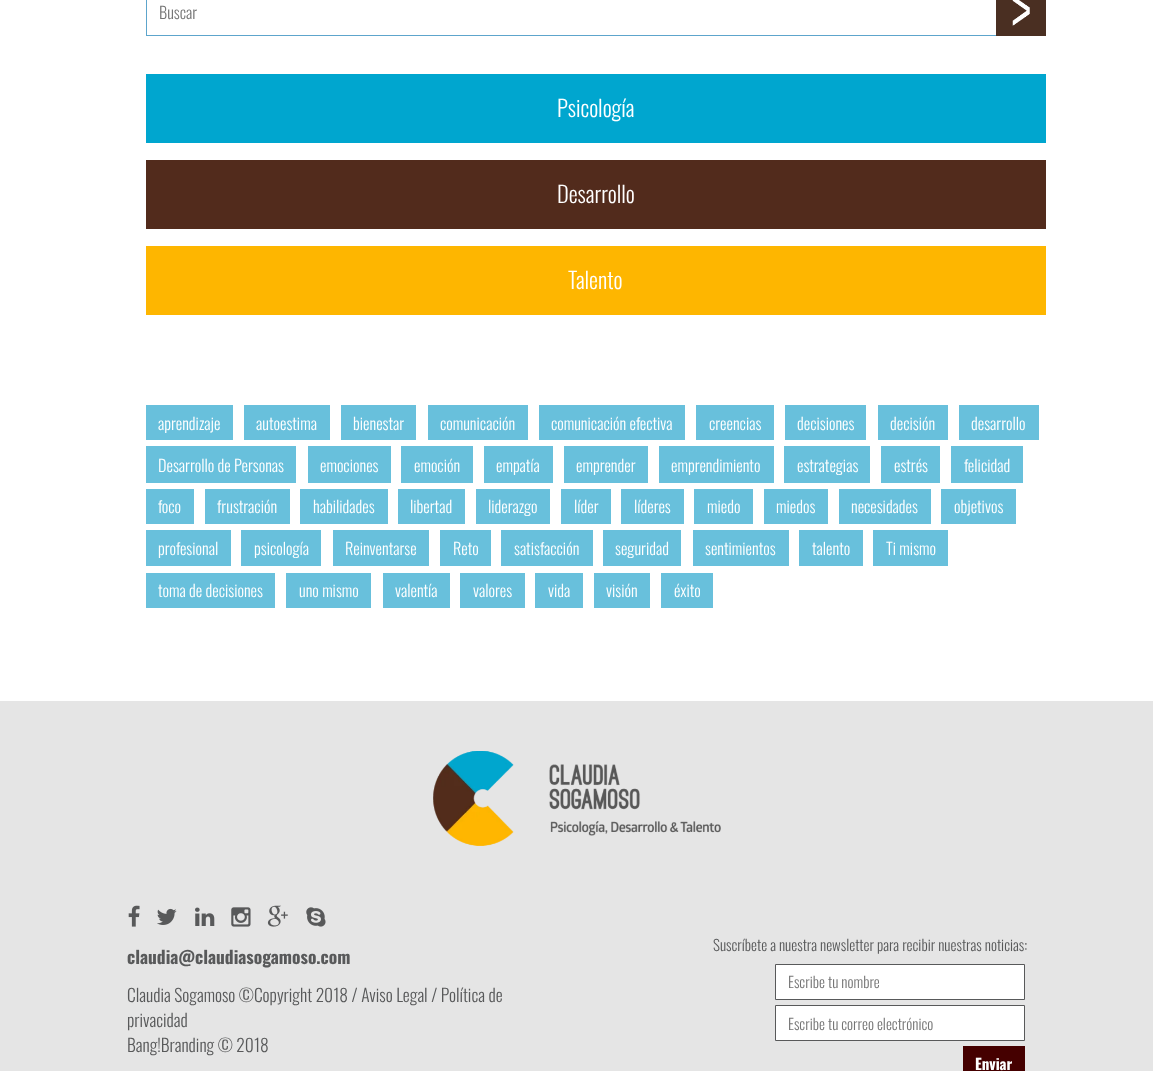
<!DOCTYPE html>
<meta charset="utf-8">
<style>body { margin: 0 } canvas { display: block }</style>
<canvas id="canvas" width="1153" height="1071"></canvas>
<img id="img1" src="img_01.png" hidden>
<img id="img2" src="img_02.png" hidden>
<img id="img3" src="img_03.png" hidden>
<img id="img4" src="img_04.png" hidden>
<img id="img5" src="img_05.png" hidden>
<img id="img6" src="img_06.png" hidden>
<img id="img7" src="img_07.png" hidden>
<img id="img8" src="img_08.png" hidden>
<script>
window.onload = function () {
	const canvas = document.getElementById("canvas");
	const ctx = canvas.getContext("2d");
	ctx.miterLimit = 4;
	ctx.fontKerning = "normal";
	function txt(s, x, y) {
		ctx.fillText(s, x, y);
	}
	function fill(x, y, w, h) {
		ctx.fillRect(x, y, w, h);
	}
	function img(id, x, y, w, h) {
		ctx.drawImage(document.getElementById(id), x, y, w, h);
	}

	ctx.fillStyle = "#FFFFFF";
	fill(0, 0, 1153, 1071);
	ctx.strokeStyle = "#5DA5CC";
	ctx.strokeRect(146.5, -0.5, 899, 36);
	ctx.fillStyle = "#4A2F22";
	fill(996, 0, 50, 36);
	img("img1", 1012, 0, 18, 26);
	ctx.fillStyle = "#00A6CF";
	fill(146, 74, 900, 69);
	ctx.fillStyle = "#522B1C";
	fill(146, 160, 900, 69);
	ctx.fillStyle = "#FEB600";
	fill(146, 246, 900, 69);
	ctx.fillStyle = "#68C0DC";
	fill(146, 405, 87, 35);
	fill(244, 405, 86, 35);
	fill(341, 405, 75, 35);
	fill(428, 405, 100, 35);
	fill(539, 405, 146, 35);
	fill(696, 405, 78, 35);
	fill(785, 405, 81, 35);
	fill(878, 405, 70, 35);
	fill(959, 405, 80, 35);
	fill(146, 446, 150, 37);
	fill(308, 446, 83, 37);
	fill(401, 446, 72, 37);
	fill(484, 446, 69, 37);
	fill(564, 446, 84, 37);
	fill(659, 446, 115, 37);
	fill(784, 446, 86, 37);
	fill(881, 446, 59, 37);
	fill(951, 446, 72, 37);
	fill(146, 489, 48, 35);
	fill(205, 489, 85, 35);
	fill(300, 489, 88, 35);
	fill(398, 489, 67, 35);
	fill(476, 489, 74, 35);
	fill(561, 489, 50, 35);
	fill(621, 489, 63, 35);
	fill(694, 489, 59, 35);
	fill(764, 489, 64, 35);
	fill(839, 489, 92, 35);
	fill(941, 489, 75, 35);
	fill(146, 530, 85, 36);
	fill(241, 530, 80, 36);
	fill(333, 530, 96, 36);
	fill(440, 530, 51, 36);
	fill(501, 530, 92, 36);
	fill(603, 530, 78, 36);
	fill(693, 530, 96, 36);
	fill(799, 530, 64, 36);
	fill(873, 530, 75, 36);
	fill(146, 573, 129, 35);
	fill(286, 573, 85, 35);
	fill(383, 573, 67, 35);
	fill(460, 573, 65, 35);
	fill(535, 573, 48, 35);
	fill(594, 573, 56, 35);
	fill(661, 573, 52, 35);
	ctx.fillStyle = "#E5E5E5";
	fill(0, 701, 1153, 370);
	img("img2", 433, 751, 288, 95);
	img("img3", 128, 905, 12, 22);
	img("img4", 157, 908, 20, 17);
	img("img5", 195, 907, 20, 19);
	img("img6", 231, 907, 20, 20);
	img("img7", 267, 905, 21, 22);
	img("img8", 306, 907, 20, 20);
	ctx.fillStyle = "#FFFFFF";
	ctx.beginPath();
	ctx.rect(775.5, 964.5, 249, 35);
	ctx.fill();
	ctx.strokeStyle = "#58595A";
	ctx.stroke();
	ctx.beginPath();
	ctx.rect(775.5, 1005.5, 249, 35);
	ctx.fill();
	ctx.stroke();
	ctx.fillStyle = "#450000";
	fill(963, 1046, 62, 25);
	ctx.font = "300 16.25px Oswald";
	ctx.fillStyle = "#757575";
	txt("Buscar", 159, 19);
	ctx.font = "300 22.5px Oswald";
	ctx.fillStyle = "#FFFFFF";
	txt("Psicología", 557, 117);
	txt("Desarrollo", 557, 203);
	txt("Talento", 568, 289);
	ctx.font = "300 16.25px Oswald";
	txt("aprendizaje", 158, 430);
	txt("autoestima", 256, 430);
	txt("bienestar", 353, 430);
	txt("comunicación", 440, 430);
	txt("comunicación efectiva", 551, 430);
	txt("creencias", 709, 430);
	txt("decisiones", 797, 430);
	txt("decisión", 890, 430);
	txt("desarrollo", 971, 430);
	txt("Desarrollo de Personas", 158, 472);
	txt("emociones", 320, 472);
	txt("emoción", 414, 472);
	txt("empatía", 496, 472);
	txt("emprender", 576, 472);
	txt("emprendimiento", 671, 472);
	txt("estrategias", 797, 472);
	txt("estrés", 894, 472);
	txt("felicidad", 964, 472);
	txt("foco", 158, 513);
	txt("frustración", 217, 513);
	txt("habilidades", 313, 513);
	txt("libertad", 410, 513);
	txt("liderazgo", 488, 513);
	txt("líder", 574, 513);
	txt("líderes", 634, 513);
	txt("miedo", 707, 513);
	txt("miedos", 776, 513);
	txt("necesidades", 851, 513);
	txt("objetivos", 954, 513);
	txt("profesional", 158, 555);
	txt("psicología", 254, 555);
	txt("Reinventarse", 345, 555);
	txt("Reto", 453, 555);
	txt("satisfacción", 514, 555);
	txt("seguridad", 615, 555);
	txt("sentimientos", 705, 555);
	txt("talento", 812, 555);
	txt("Ti mismo", 886, 555);
	txt("toma de decisiones", 158, 597);
	txt("uno mismo", 299, 597);
	txt("valentía", 395, 597);
	txt("valores", 473, 597);
	txt("vida", 548, 597);
	txt("visión", 606, 597);
	txt("éxito", 674, 597);
	ctx.font = "bold 17.5px Oswald";
	ctx.fillStyle = "#58595A";
	txt("claudia@claudiasogamoso.com", 127, 964);
	ctx.font = "300 17.5px Oswald";
	txt("Claudia Sogamoso ©Copyright 2018 / Aviso Legal / Política de", 127, 1002);
	txt("privacidad", 127, 1027);
	txt("Bang!Branding © 2018", 127, 1052);
	ctx.font = "300 15px Oswald";
	txt("Suscríbete a nuestra newsletter para recibir nuestras noticias:", 713, 951);
	ctx.fillStyle = "#757575";
	txt("Escribe tu nombre", 788, 988);
	txt("Escribe tu correo electrónico", 788, 1030);
	ctx.font = "bold 15px Oswald";
	ctx.fillStyle = "#FFFFFF";
	txt("Enviar", 975, 1070);
};
</script>
